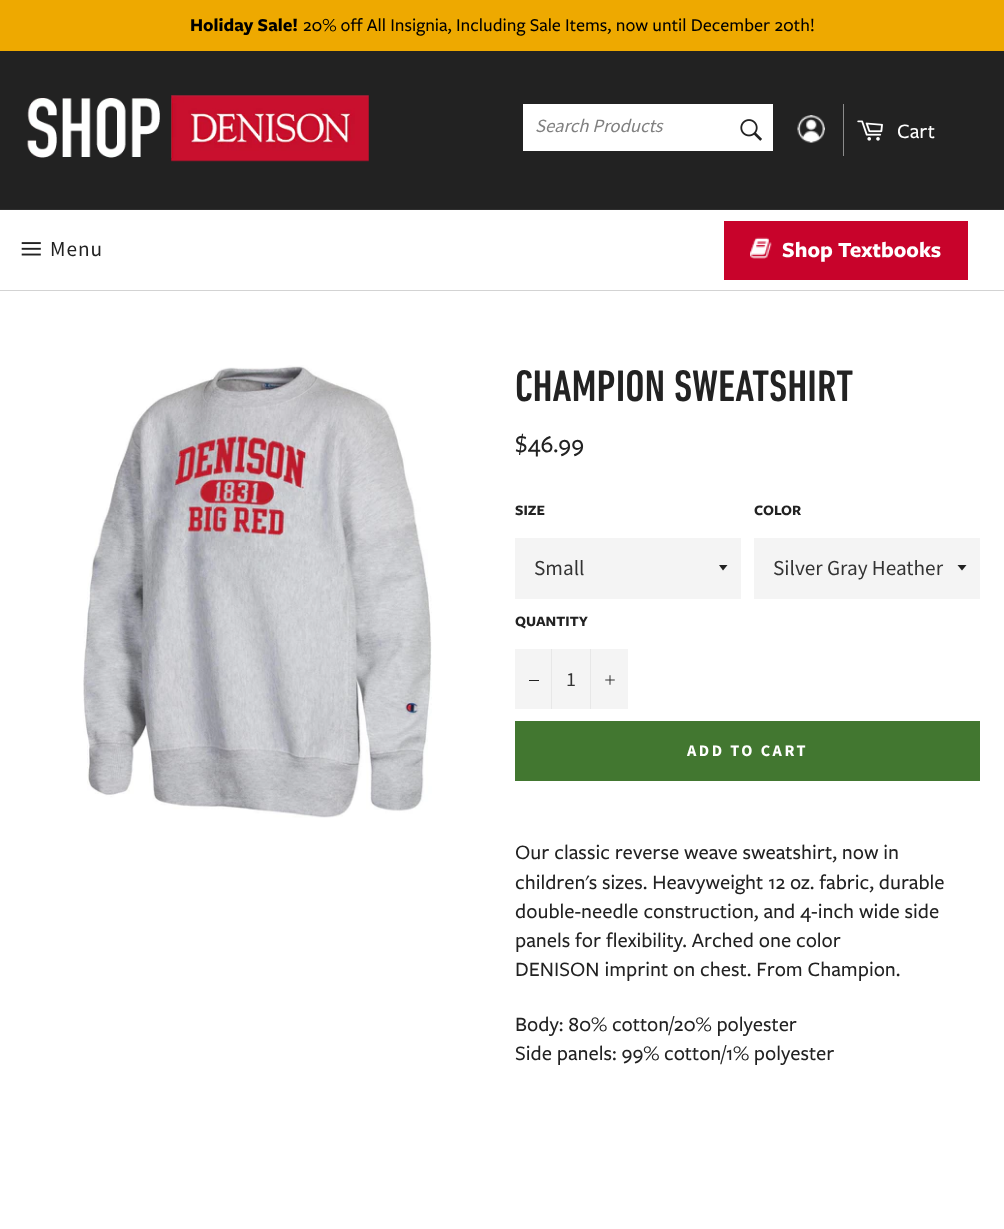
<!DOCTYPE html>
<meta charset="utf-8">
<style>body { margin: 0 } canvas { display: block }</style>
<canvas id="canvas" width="1004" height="1229"></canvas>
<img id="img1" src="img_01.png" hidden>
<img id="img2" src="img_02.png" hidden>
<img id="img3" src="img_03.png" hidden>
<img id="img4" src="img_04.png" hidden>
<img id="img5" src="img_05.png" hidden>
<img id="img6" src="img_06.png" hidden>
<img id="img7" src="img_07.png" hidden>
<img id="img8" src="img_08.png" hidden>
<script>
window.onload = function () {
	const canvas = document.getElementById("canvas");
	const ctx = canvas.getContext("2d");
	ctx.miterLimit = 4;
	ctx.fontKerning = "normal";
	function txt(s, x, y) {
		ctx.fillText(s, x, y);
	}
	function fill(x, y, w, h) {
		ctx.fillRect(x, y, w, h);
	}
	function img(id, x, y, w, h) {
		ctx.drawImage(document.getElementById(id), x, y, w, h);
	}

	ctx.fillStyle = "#FFFFFF";
	fill(0, 0, 1004, 1229);
	ctx.fillStyle = "#EEA900";
	fill(0, 0, 1004, 51);
	ctx.fillStyle = "#222222";
	fill(0, 51, 1004, 158);
	img("img1", 27, 95, 342, 67);
	ctx.fillStyle = "#FFFFFF";
	fill(523, 104, 250, 47);
	img("img2", 740, 119, 22, 22);
	img("img3", 797, 115, 28, 28);
	ctx.fillStyle = "#8B8B8B";
	fill(843, 104, 1, 52);
	img("img4", 857, 120, 26, 21);
	ctx.fillStyle = "#2F2F2F";
	fill(0, 209, 1004, 1);
	ctx.fillStyle = "#D3D3D3";
	fill(0, 290, 1004, 1);
	img("img5", 21, 242, 20, 14);
	ctx.fillStyle = "#C8032B";
	fill(724, 221, 244, 59);
	img("img6", 750, 237, 22, 22);
	img("img7", 83, 365, 349, 453);
	ctx.fillStyle = "#F4F4F4";
	fill(515, 538, 226, 61);
	ctx.fillStyle = "#222222";
	ctx.beginPath();
	ctx.moveTo(719, 565);
	ctx.lineTo(723, 570.5);
	ctx.lineTo(727.5, 565);
	ctx.closePath();
	ctx.fill();
	ctx.fillStyle = "#F4F4F4";
	fill(754, 538, 226, 61);
	ctx.fillStyle = "#222222";
	ctx.beginPath();
	ctx.moveTo(957.5, 565);
	ctx.lineTo(962, 570.5);
	ctx.lineTo(966.5, 565);
	ctx.closePath();
	ctx.fill();
	ctx.fillStyle = "#F4F4F4";
	fill(515, 649, 113, 60);
	ctx.fillStyle = "#E7E7E7";
	fill(551, 649, 1, 60);
	ctx.fillStyle = "#222222";
	fill(529, 680, 10, 1);
	ctx.fillStyle = "#E7E7E7";
	fill(590, 649, 1, 60);
	img("img8", 605, 675, 10, 10);
	ctx.fillStyle = "#427730";
	fill(515, 721, 465, 60);
	ctx.font = "bold 18.75px 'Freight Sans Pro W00'";
	ctx.fillStyle = "#000000";
	txt("Holiday Sale!", 190, 31);
	ctx.font = "500 18.75px 'Freight Sans Pro W00'";
	txt("20% off All Insignia, Including Sale Items, now until December 20th!", 303, 31);
	ctx.font = "italic 18.75px Source Sans Pro";
	ctx.fillStyle = "#808080";
	txt("Search Products", 535, 132);
	ctx.font = "500 21.25px 'Freight Sans Pro W00'";
	ctx.fillStyle = "#FFFFFF";
	txt("Cart", 897, 138);
	ctx.letterSpacing = "1px";
	ctx.font = "21.25px Source Sans Pro";
	ctx.fillStyle = "#222222";
	txt("Menu", 50, 256);
	ctx.letterSpacing = "0px";
	ctx.font = "bold 22.5px 'Freight Sans Pro W00'";
	ctx.fillStyle = "#FFFFFF";
	txt("Shop Textbooks", 782, 257);
	ctx.font = "500 45px DIN Next";
	ctx.fillStyle = "#222222";
	txt("CHAMPION SWEATSHIRT", 515, 401);
	ctx.font = "500 25px 'Freight Sans Pro W00'";
	txt("$46.99", 515, 452);
	ctx.font = "bold 15px 'Freight Sans Pro W00'";
	txt("SIZE", 515, 515);
	ctx.font = "21.25px Source Sans Pro";
	ctx.fillStyle = "#333333";
	txt("Small", 534, 575);
	ctx.font = "bold 15px 'Freight Sans Pro W00'";
	ctx.fillStyle = "#222222";
	txt("COLOR", 754, 515);
	ctx.font = "21.25px Source Sans Pro";
	ctx.fillStyle = "#333333";
	txt("Silver Gray Heather", 773, 575);
	ctx.font = "bold 15px 'Freight Sans Pro W00'";
	ctx.fillStyle = "#222222";
	txt("QUANTITY", 515, 626);
	ctx.font = "20px Source Sans Pro";
	ctx.fillStyle = "#333333";
	txt("1", 566, 686);
	ctx.letterSpacing = "2.5px";
	ctx.font = "bold 16.25px Source Sans Pro";
	ctx.fillStyle = "#FFFFFF";
	txt("ADD TO CART", 687, 756);
	ctx.letterSpacing = "0px";
	ctx.font = "500 21.25px 'Freight Sans Pro W00'";
	ctx.fillStyle = "#222222";
	txt("Our classic reverse weave sweatshirt, now in", 515, 859);
	txt("children's sizes. Heavyweight 12 oz. fabric, durable", 515, 889);
	txt("double-needle construction, and 4-inch wide side", 515, 918);
	txt("panels for flexibility. Arched one color", 515, 947);
	txt("DENISON imprint on chest. From Champion.", 515, 976);
	txt("Body: 80% cotton/20% polyester", 515, 1031);
	txt("Side panels: 99% cotton/1% polyester", 515, 1060);
};
</script>
